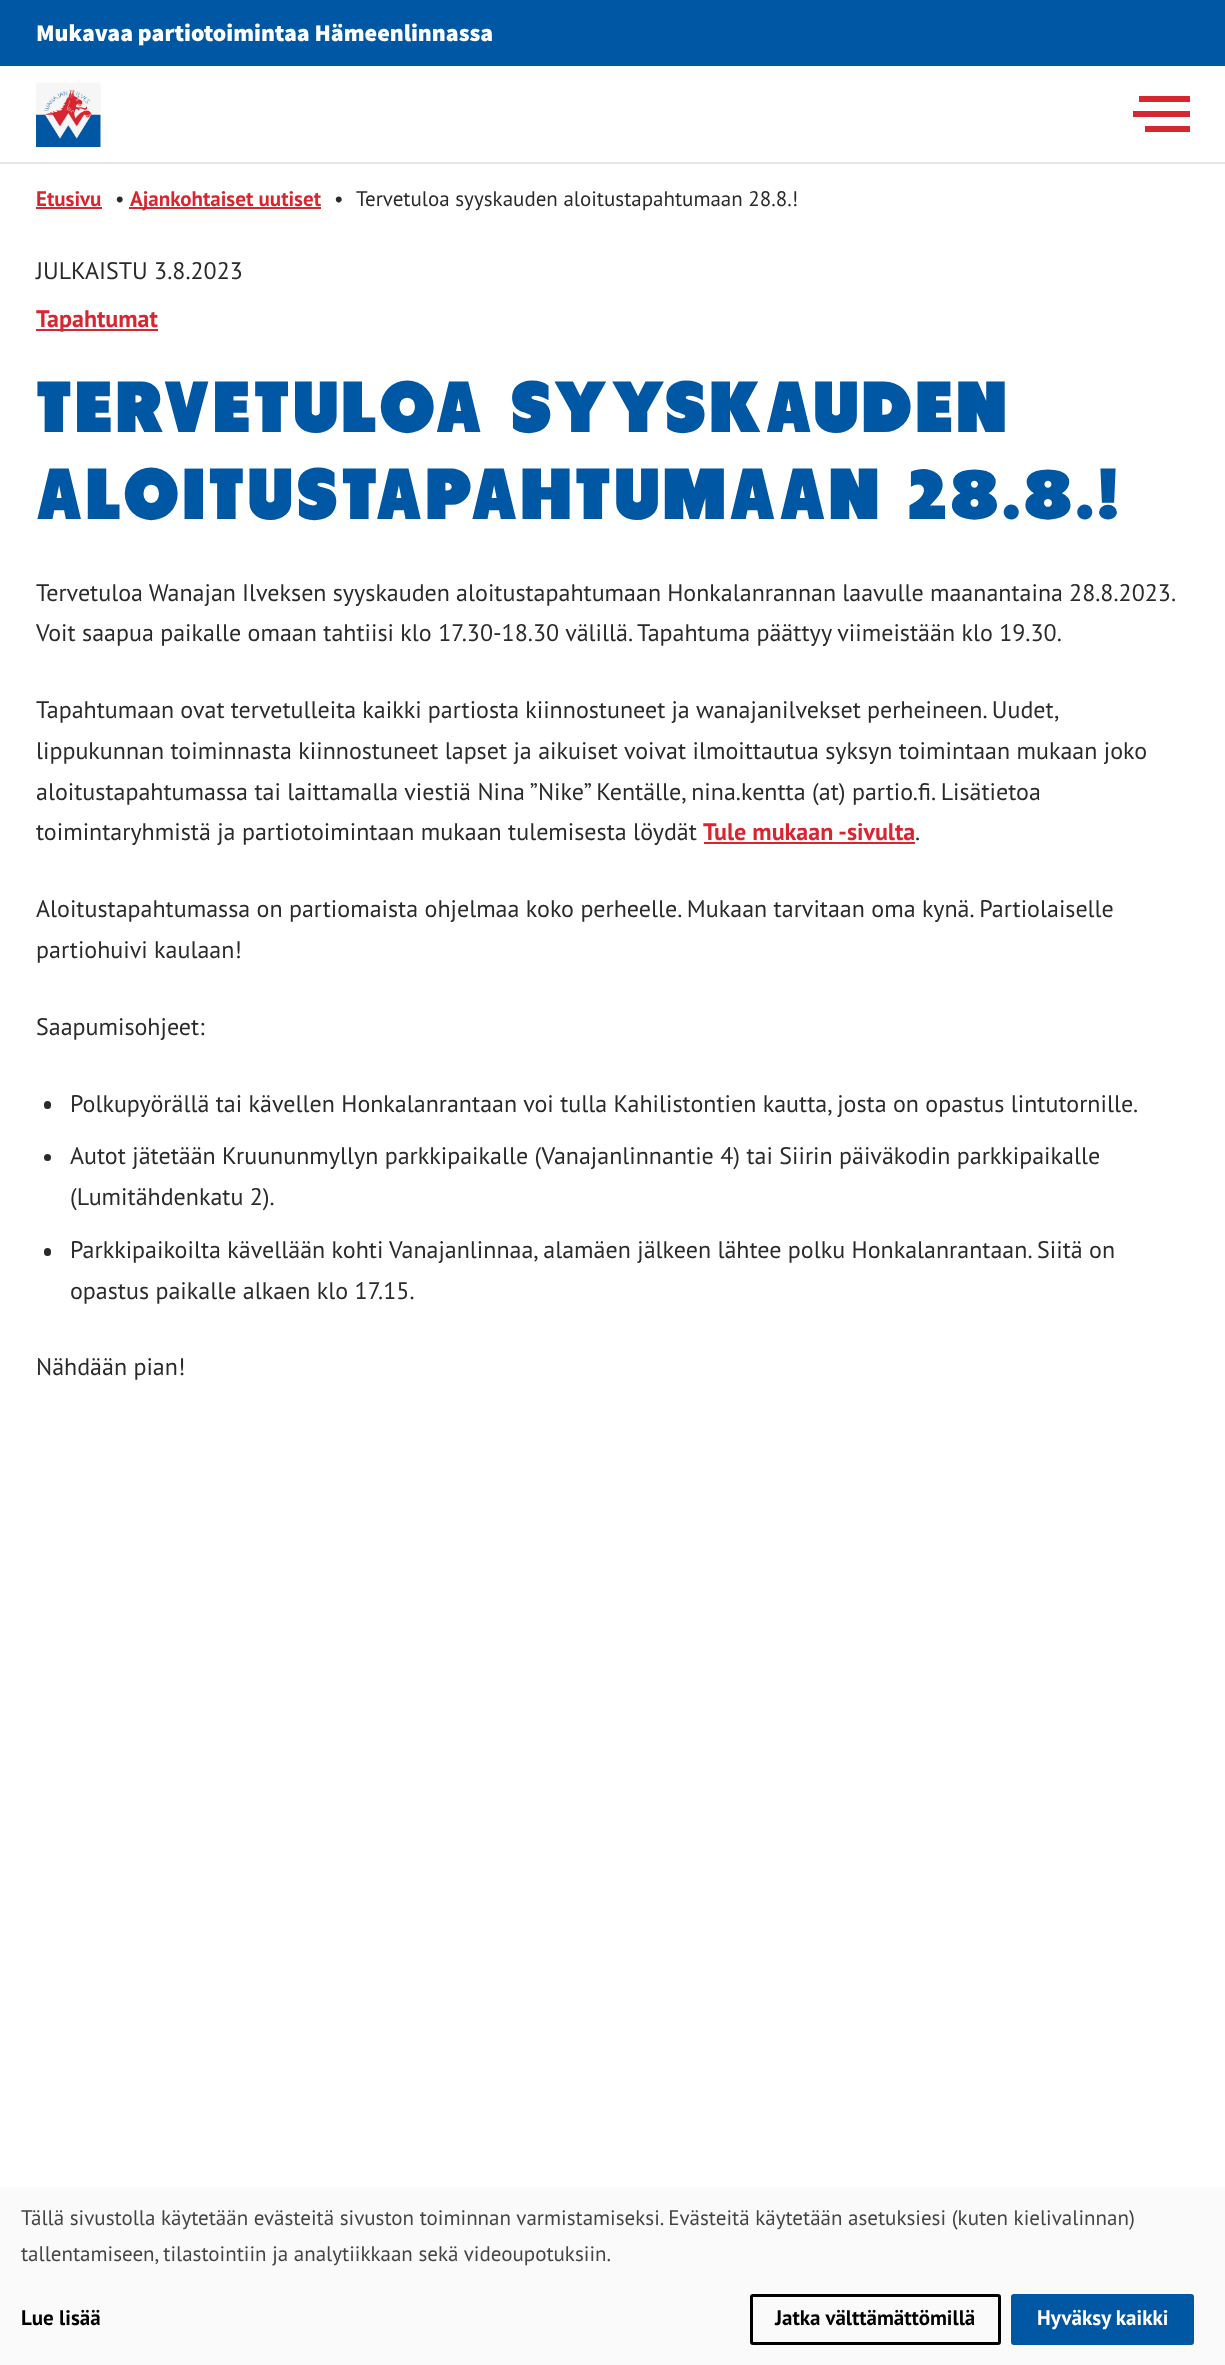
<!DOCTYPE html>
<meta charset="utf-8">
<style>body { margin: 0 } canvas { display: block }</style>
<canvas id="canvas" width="1225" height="2365"></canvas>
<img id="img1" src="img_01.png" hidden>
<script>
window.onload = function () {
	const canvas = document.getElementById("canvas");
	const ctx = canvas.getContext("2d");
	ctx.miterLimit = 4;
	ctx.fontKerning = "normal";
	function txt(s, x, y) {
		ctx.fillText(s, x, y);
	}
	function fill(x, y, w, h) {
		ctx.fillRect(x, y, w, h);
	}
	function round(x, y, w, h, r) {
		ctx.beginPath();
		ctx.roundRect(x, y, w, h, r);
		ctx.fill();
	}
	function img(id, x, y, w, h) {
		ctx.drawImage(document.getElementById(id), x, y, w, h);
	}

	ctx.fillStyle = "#FFFFFF";
	fill(0, 0, 1225, 2365);
	ctx.fillStyle = "#0057A4";
	fill(0, 0, 1225, 66);
	ctx.fillStyle = "#E6E6E6";
	fill(0, 162, 1225, 2);
	img("img1", 36, 82, 65, 65);
	ctx.fillStyle = "#D72630";
	fill(1133, 111, 57, 6);
	fill(1139, 96, 51, 6);
	fill(1145, 126, 45, 6);
	fill(36, 207, 66, 2);
	fill(129, 207, 192, 2);
	fill(36, 329, 122, 2);
	fill(704, 842, 211, 2);
	ctx.fillStyle = "#2A2A2A";
	round(44, 1101, 7, 8, 3.5);
	ctx.beginPath();
	ctx.arc(47.5, 1157.5, 3.5, 0, Math.PI * 2);
	ctx.fill();
	round(44, 1248, 7, 8, 3.5);
	ctx.fillStyle = "#FAFAFA";
	fill(0, 2187, 1225, 178);
	ctx.beginPath();
	ctx.roundRect(751.5, 2295.5, 248, 48, 1.5);
	ctx.strokeStyle = "#000000";
	ctx.lineWidth = 3;
	ctx.stroke();
	ctx.fillStyle = "#0057A4";
	ctx.beginPath();
	ctx.roundRect(1012.5, 2295.5, 180, 48, 1.5);
	ctx.fill();
	ctx.strokeStyle = "#0057A4";
	ctx.stroke();
	ctx.font = "900 24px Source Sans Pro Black";
	ctx.fillStyle = "#FFFFFF";
	txt("Mukavaa partiotoimintaa Hämeenlinnassa", 36, 41);
	ctx.font = "bold 21px PT Sans";
	ctx.fillStyle = "#D72630";
	txt("Etusivu", 36, 206);
	ctx.font = "21px PT Sans";
	ctx.fillStyle = "#2A2A2A";
	txt("•", 115, 206);
	ctx.font = "bold 21px PT Sans";
	ctx.fillStyle = "#D72630";
	txt("Ajankohtaiset uutiset", 130, 206);
	ctx.font = "21px PT Sans";
	ctx.fillStyle = "#2A2A2A";
	txt("•", 334, 206);
	txt("Tervetuloa syyskauden aloitustapahtumaan 28.8.!", 356, 206);
	ctx.font = "24px PT Sans";
	txt("JULKAISTU 3.8.2023", 36, 279);
	ctx.font = "bold 24px PT Sans";
	ctx.fillStyle = "#D72630";
	txt("Tapahtumat", 36, 327);
	ctx.letterSpacing = "3.6px";
	ctx.font = "72px 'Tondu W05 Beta'";
	ctx.fillStyle = "#0057A4";
	txt("TERVETULOA SYYSKAUDEN", 36, 432);
	txt("ALOITUSTAPAHTUMAAN 28.8.!", 36, 519);
	ctx.letterSpacing = "0px";
	ctx.wordSpacing = "-0.25px";
	ctx.font = "24px PT Sans";
	ctx.fillStyle = "#2A2A2A";
	txt("Tervetuloa Wanajan Ilveksen syyskauden aloitustapahtumaan Honkalanrannan laavulle maanantaina 28.8.2023.", 36, 601);
	ctx.wordSpacing = "0px";
	txt("Voit saapua paikalle omaan tahtiisi klo 17.30-18.30 välillä. Tapahtuma päättyy viimeistään klo 19.30.", 36, 641);
	ctx.wordSpacing = "-0.25px";
	txt("Tapahtumaan ovat tervetulleita kaikki partiosta kiinnostuneet ja wanajanilvekset perheineen. Uudet,", 36, 718);
	ctx.wordSpacing = "0px";
	txt("lippukunnan toiminnasta kiinnostuneet lapset ja aikuiset voivat ilmoittautua syksyn toimintaan mukaan joko", 36, 759);
	txt("aloitustapahtumassa tai laittamalla viestiä Nina ”Nike” Kentälle, nina.kentta (at) partio.fi. Lisätietoa", 36, 800);
	txt("toimintaryhmistä ja partiotoimintaan mukaan tulemisesta löydät", 36, 840);
	ctx.font = "bold 24px PT Sans";
	ctx.fillStyle = "#D72630";
	txt("Tule mukaan -sivulta", 703, 840);
	ctx.font = "24px PT Sans";
	ctx.fillStyle = "#2A2A2A";
	txt(".", 915, 840);
	txt("Aloitustapahtumassa on partiomaista ohjelmaa koko perheelle. Mukaan tarvitaan oma kynä. Partiolaiselle", 36, 917);
	txt("partiohuivi kaulaan!", 36, 958);
	txt("Saapumisohjeet:", 36, 1035);
	txt("Polkupyörällä tai kävellen Honkalanrantaan voi tulla Kahilistontien kautta, josta on opastus lintutornille.", 70, 1112);
	txt("Autot jätetään Kruununmyllyn parkkipaikalle (Vanajanlinnantie 4) tai Siirin päiväkodin parkkipaikalle", 70, 1164);
	txt("(Lumitähdenkatu 2).", 70, 1205);
	txt("Parkkipaikoilta kävellään kohti Vanajanlinnaa, alamäen jälkeen lähtee polku Honkalanrantaan. Siitä on", 70, 1258);
	txt("opastus paikalle alkaen klo 17.15.", 70, 1299);
	txt("Nähdään pian!", 36, 1375);
	ctx.font = "21px PT Sans";
	ctx.fillStyle = "#444444";
	txt("Tällä sivustolla käytetään evästeitä sivuston toiminnan varmistamiseksi. Evästeitä käytetään asetuksiesi (kuten kielivalinnan)", 21, 2225);
	txt("tallentamiseen, tilastointiin ja analytiikkaan sekä videoupotuksiin.", 21, 2261);
	ctx.font = "bold 21px PT Sans";
	ctx.fillStyle = "#000000";
	txt("Lue lisää", 21, 2325);
	txt("Jatka välttämättömillä", 775, 2325);
	ctx.fillStyle = "#FFFFFF";
	txt("Hyväksy kaikki", 1037, 2325);
};
</script>
